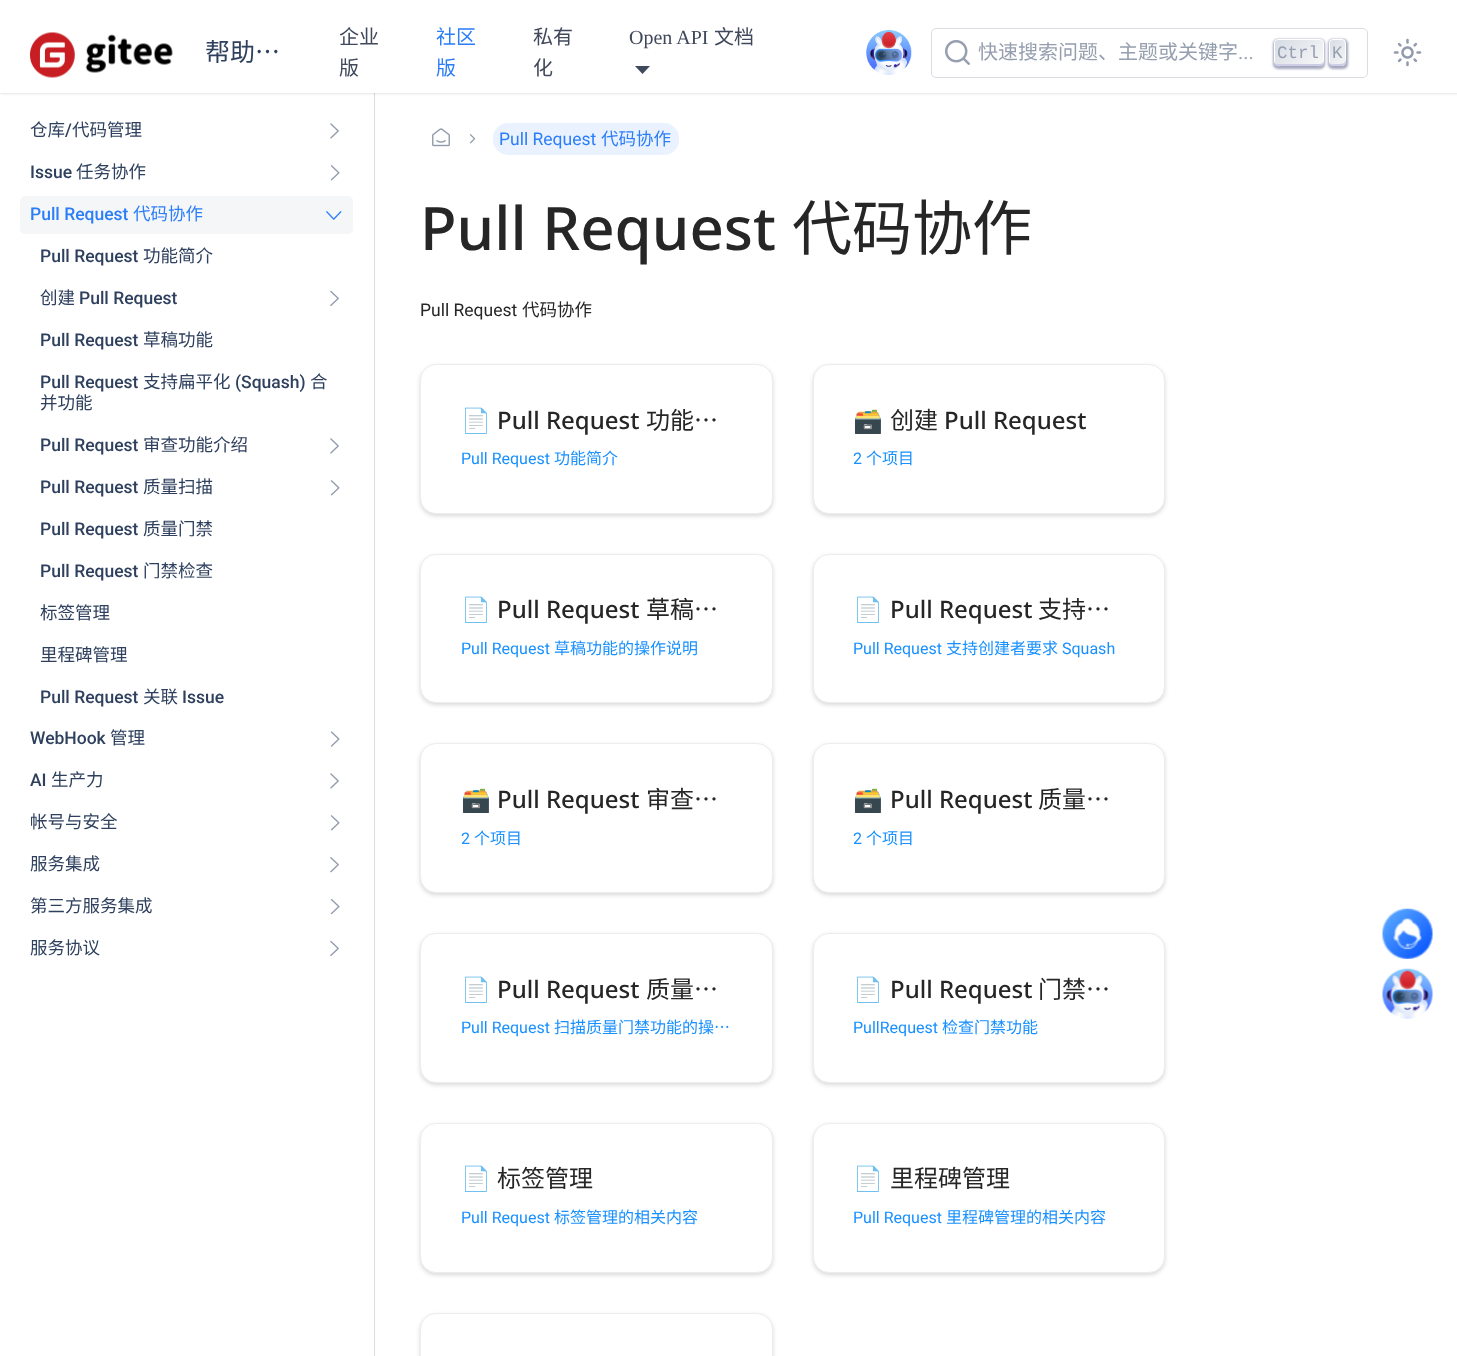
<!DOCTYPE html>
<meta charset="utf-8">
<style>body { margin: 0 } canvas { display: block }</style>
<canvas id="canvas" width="1457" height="1356"></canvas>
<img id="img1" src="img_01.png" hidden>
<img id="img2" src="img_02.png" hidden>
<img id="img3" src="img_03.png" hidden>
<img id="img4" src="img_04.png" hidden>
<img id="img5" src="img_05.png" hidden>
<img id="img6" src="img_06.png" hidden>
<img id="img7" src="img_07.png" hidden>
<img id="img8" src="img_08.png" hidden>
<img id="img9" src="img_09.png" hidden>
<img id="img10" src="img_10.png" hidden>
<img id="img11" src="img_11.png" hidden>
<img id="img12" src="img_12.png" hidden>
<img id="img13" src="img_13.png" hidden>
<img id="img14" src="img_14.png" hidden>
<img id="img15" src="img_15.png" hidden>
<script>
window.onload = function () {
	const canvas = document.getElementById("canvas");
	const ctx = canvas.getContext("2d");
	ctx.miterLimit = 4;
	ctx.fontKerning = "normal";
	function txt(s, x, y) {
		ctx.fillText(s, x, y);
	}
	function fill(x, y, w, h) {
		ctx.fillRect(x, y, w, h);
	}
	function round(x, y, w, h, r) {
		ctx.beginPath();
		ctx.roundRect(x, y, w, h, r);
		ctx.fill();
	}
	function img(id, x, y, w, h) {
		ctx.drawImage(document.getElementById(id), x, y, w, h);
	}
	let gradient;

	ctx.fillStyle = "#FFFFFF";
	fill(0, 0, 1457, 1356);
	ctx.fillStyle = "#DADEE3";
	fill(374, 93, 1, 1263);
	ctx.fillStyle = "rgba(0, 0, 0, 0.1)";
	ctx.filter = "blur(1px)";
	ctx.beginPath();
	ctx.rect(0, 1, 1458, 93);
	ctx.fill();
	ctx.filter = "none";
	ctx.fillStyle = "#FFFFFF";
	fill(0, 0, 1457, 93);
	img("img1", 30, 32, 143, 46);
	ctx.fillStyle = "#40485B";
	ctx.beginPath();
	ctx.moveTo(635, 66);
	ctx.lineTo(650, 66);
	ctx.lineTo(642.5, 74);
	ctx.closePath();
	ctx.fill();
	img("img2", 866, 30, 46, 45);
	ctx.beginPath();
	ctx.roundRect(931.5, 28.5, 436, 49, 4.5);
	ctx.strokeStyle = "#DADEE3";
	ctx.stroke();
	img("img3", 945, 40, 25, 25);
	ctx.fillStyle = "rgba(30, 35, 90, 0.4)";
	ctx.filter = "blur(1px)";
	ctx.beginPath();
	ctx.roundRect(1273, 39, 52, 30, 5);
	ctx.fill();
	ctx.filter = "none";
	gradient = ctx.createLinearGradient(1279, 33, 1318, 72);
	gradient.addColorStop(0, "#D5DBE4");
	gradient.addColorStop(1, "#F8F8F8");
	ctx.fillStyle = gradient;
	ctx.beginPath();
	ctx.roundRect(1274.5, 39.5, 49, 26, 3.5);
	ctx.fill();
	ctx.strokeStyle = "#FFFFFF";
	ctx.stroke();
	ctx.fillStyle = "#CDCDE6";
	ctx.beginPath();
	ctx.moveTo(1274, 60);
	ctx.bezierCurveTo(1274, 68, 1278, 66, 1285, 66);
	ctx.lineTo(1313, 66);
	ctx.bezierCurveTo(1320, 66, 1324, 68, 1324, 60);
	ctx.bezierCurveTo(1324, 62, 1322, 64, 1320, 64);
	ctx.lineTo(1278, 64);
	ctx.bezierCurveTo(1275, 64, 1274, 62, 1274, 60);
	ctx.closePath();
	ctx.fill();
	ctx.fillStyle = "rgba(30, 35, 90, 0.4)";
	ctx.filter = "blur(1px)";
	ctx.beginPath();
	ctx.roundRect(1328, 39, 20, 30, 5);
	ctx.fill();
	ctx.filter = "none";
	gradient = ctx.createLinearGradient(1326, 41, 1349, 64);
	gradient.addColorStop(0, "#D5DBE4");
	gradient.addColorStop(1, "#F8F8F8");
	ctx.fillStyle = gradient;
	ctx.beginPath();
	ctx.roundRect(1329.5, 39.5, 16, 26, 3.5);
	ctx.fill();
	ctx.stroke();
	ctx.fillStyle = "#CDCDE6";
	ctx.beginPath();
	ctx.moveTo(1329, 61.5);
	ctx.bezierCurveTo(1329, 67, 1334, 66, 1337.5, 66);
	ctx.bezierCurveTo(1340, 66, 1343.5, 66.5, 1345.5, 64);
	ctx.bezierCurveTo(1346.5, 62, 1346, 59, 1346, 56.5);
	ctx.bezierCurveTo(1346, 63.5, 1344, 64, 1337, 64);
	ctx.bezierCurveTo(1334.5, 64, 1329.5, 65, 1329, 61.5);
	ctx.closePath();
	ctx.fill();
	img("img4", 1393, 38, 29, 29);
	img("img5", 330, 123, 9, 16);
	img("img6", 330, 165, 10, 16);
	ctx.fillStyle = "#F5F6F8";
	round(20, 196, 333, 38, 5);
	img("img7", 326, 211, 16, 9);
	img("img8", 330, 290, 9, 16);
	img("img5", 330, 438, 9, 16);
	img("img6", 330, 480, 10, 16);
	img("img9", 330, 731, 10, 16);
	img("img5", 330, 773, 9, 16);
	img("img6", 330, 815, 10, 16);
	img("img10", 330, 857, 9, 16);
	img("img11", 330, 899, 10, 16);
	img("img8", 330, 940, 9, 16);
	img("img12", 432, 128, 18, 19);
	img("img13", 469, 134, 7, 10);
	ctx.fillStyle = "#E9F2FE";
	round(493, 123, 186, 32, 15);
	ctx.fillStyle = "rgba(0, 0, 0, 0.15)";
	ctx.filter = "blur(2px)";
	ctx.beginPath();
	ctx.roundRect(420, 366, 353, 150, 16);
	ctx.fill();
	ctx.filter = "none";
	ctx.fillStyle = "#FFFFFF";
	ctx.beginPath();
	ctx.roundRect(420.5, 364.5, 352, 149, 15.5);
	ctx.fill();
	ctx.strokeStyle = "#EBEDF0";
	ctx.stroke();
	ctx.fillStyle = "rgba(0, 0, 0, 0.15)";
	ctx.filter = "blur(2px)";
	ctx.beginPath();
	ctx.roundRect(813, 366, 352, 150, 16);
	ctx.fill();
	ctx.filter = "none";
	ctx.fillStyle = "#FFFFFF";
	ctx.beginPath();
	ctx.roundRect(813.5, 364.5, 351, 149, 15.5);
	ctx.fill();
	ctx.stroke();
	ctx.fillStyle = "rgba(0, 0, 0, 0.15)";
	ctx.filter = "blur(2px)";
	ctx.beginPath();
	ctx.roundRect(420, 556, 353, 149, 16);
	ctx.fill();
	ctx.filter = "none";
	ctx.fillStyle = "#FFFFFF";
	ctx.beginPath();
	ctx.roundRect(420.5, 554.5, 352, 148, 15.5);
	ctx.fill();
	ctx.stroke();
	ctx.fillStyle = "rgba(0, 0, 0, 0.15)";
	ctx.filter = "blur(2px)";
	ctx.beginPath();
	ctx.roundRect(813, 556, 352, 149, 16);
	ctx.fill();
	ctx.filter = "none";
	ctx.fillStyle = "#FFFFFF";
	ctx.beginPath();
	ctx.roundRect(813.5, 554.5, 351, 148, 15.5);
	ctx.fill();
	ctx.stroke();
	ctx.fillStyle = "rgba(0, 0, 0, 0.15)";
	ctx.filter = "blur(2px)";
	ctx.beginPath();
	ctx.roundRect(420, 745, 353, 150, 16);
	ctx.fill();
	ctx.filter = "none";
	ctx.fillStyle = "#FFFFFF";
	ctx.beginPath();
	ctx.roundRect(420.5, 743.5, 352, 149, 15.5);
	ctx.fill();
	ctx.stroke();
	ctx.fillStyle = "rgba(0, 0, 0, 0.15)";
	ctx.filter = "blur(2px)";
	ctx.beginPath();
	ctx.roundRect(813, 745, 352, 150, 16);
	ctx.fill();
	ctx.filter = "none";
	ctx.fillStyle = "#FFFFFF";
	ctx.beginPath();
	ctx.roundRect(813.5, 743.5, 351, 149, 15.5);
	ctx.fill();
	ctx.stroke();
	ctx.fillStyle = "rgba(0, 0, 0, 0.15)";
	ctx.filter = "blur(2px)";
	ctx.beginPath();
	ctx.roundRect(420, 935, 353, 150, 16);
	ctx.fill();
	ctx.filter = "none";
	ctx.fillStyle = "#FFFFFF";
	ctx.beginPath();
	ctx.roundRect(420.5, 933.5, 352, 149, 15.5);
	ctx.fill();
	ctx.stroke();
	ctx.fillStyle = "rgba(0, 0, 0, 0.15)";
	ctx.filter = "blur(2px)";
	ctx.beginPath();
	ctx.roundRect(813, 935, 352, 150, 16);
	ctx.fill();
	ctx.filter = "none";
	ctx.fillStyle = "#FFFFFF";
	ctx.beginPath();
	ctx.roundRect(813.5, 933.5, 351, 149, 15.5);
	ctx.fill();
	ctx.stroke();
	ctx.fillStyle = "rgba(0, 0, 0, 0.15)";
	ctx.filter = "blur(2px)";
	ctx.beginPath();
	ctx.roundRect(420, 1125, 353, 150, 16);
	ctx.fill();
	ctx.filter = "none";
	ctx.fillStyle = "#FFFFFF";
	ctx.beginPath();
	ctx.roundRect(420.5, 1123.5, 352, 149, 15.5);
	ctx.fill();
	ctx.stroke();
	ctx.fillStyle = "rgba(0, 0, 0, 0.15)";
	ctx.filter = "blur(2px)";
	ctx.beginPath();
	ctx.roundRect(813, 1125, 352, 150, 16);
	ctx.fill();
	ctx.filter = "none";
	ctx.fillStyle = "#FFFFFF";
	ctx.beginPath();
	ctx.roundRect(813.5, 1123.5, 351, 149, 15.5);
	ctx.fill();
	ctx.stroke();
	ctx.fillStyle = "rgba(0, 0, 0, 0.15)";
	ctx.filter = "blur(2px)";
	ctx.beginPath();
	ctx.roundRect(420, 1315, 353, 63, 16);
	ctx.fill();
	ctx.filter = "none";
	ctx.fillStyle = "#FFFFFF";
	ctx.beginPath();
	ctx.roundRect(420.5, 1313.5, 352, 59, 15.5);
	ctx.fill();
	ctx.stroke();
	img("img14", 1382, 908, 51, 51);
	img("img15", 1382, 968, 51, 51);
	ctx.font = "25px Noto Sans CJK SC";
	ctx.fillStyle = "#2E405E";
	txt("帮助…", 205, 61);
	ctx.font = "20px Noto Sans CJK SC";
	ctx.fillStyle = "#40485B";
	txt("企业", 339, 44);
	txt("版", 339, 75);
	ctx.fillStyle = "#2C7EF8";
	txt("社区", 436, 44);
	txt("版", 436, 75);
	ctx.fillStyle = "#40485B";
	txt("私有", 533, 44);
	txt("化", 533, 75);
	ctx.font = "20px Liberation Serif";
	txt("Open API", 629, 44);
	ctx.font = "20px Noto Sans CJK SC";
	txt("文档", 714, 44);
	ctx.fillStyle = "#969FAF";
	txt("快速搜索问题、主题或关键字", 978, 59);
	ctx.font = "20px Roboto";
	txt("...", 1238, 59);
	ctx.font = "17.5px Liberation Mono";
	txt("Ctrl", 1277, 58);
	txt("K", 1332, 58);
	ctx.font = "17.5px Noto Sans CJK SC";
	ctx.fillStyle = "#2E405E";
	txt("仓库", 30, 136);
	ctx.font = "500 17.5px Roboto";
	txt("/", 65, 136);
	ctx.font = "17.5px Noto Sans CJK SC";
	txt("代码管理", 72, 136);
	ctx.font = "500 17.5px Roboto";
	txt("Issue", 30, 178);
	ctx.font = "17.5px Noto Sans CJK SC";
	txt("任务协作", 76, 178);
	ctx.font = "500 17.5px Roboto";
	ctx.fillStyle = "#2C7EF8";
	txt("Pull Request", 30, 220);
	ctx.font = "17.5px Noto Sans CJK SC";
	txt("代码协作", 133, 220);
	ctx.font = "500 17.5px Roboto";
	ctx.fillStyle = "#2E405E";
	txt("Pull Request", 40, 262);
	ctx.font = "17.5px Noto Sans CJK SC";
	txt("功能简介", 143, 262);
	txt("创建", 40, 304);
	ctx.font = "500 17.5px Roboto";
	txt("Pull Request", 79, 304);
	txt("Pull Request", 40, 346);
	ctx.font = "17.5px Noto Sans CJK SC";
	txt("草稿功能", 143, 346);
	ctx.font = "500 17.5px Roboto";
	txt("Pull Request", 40, 388);
	ctx.font = "17.5px Noto Sans CJK SC";
	txt("支持扁平化", 143, 388);
	ctx.font = "500 17.5px Roboto";
	txt("(Squash)", 235, 388);
	ctx.font = "17.5px Noto Sans CJK SC";
	txt("合", 310, 388);
	txt("并功能", 40, 409);
	ctx.font = "500 17.5px Roboto";
	txt("Pull Request", 40, 451);
	ctx.font = "17.5px Noto Sans CJK SC";
	txt("审查功能介绍", 143, 451);
	ctx.font = "500 17.5px Roboto";
	txt("Pull Request", 40, 493);
	ctx.font = "17.5px Noto Sans CJK SC";
	txt("质量扫描", 143, 493);
	ctx.font = "500 17.5px Roboto";
	txt("Pull Request", 40, 535);
	ctx.font = "17.5px Noto Sans CJK SC";
	txt("质量门禁", 143, 535);
	ctx.font = "500 17.5px Roboto";
	txt("Pull Request", 40, 577);
	ctx.font = "17.5px Noto Sans CJK SC";
	txt("门禁检查", 143, 577);
	txt("标签管理", 40, 619);
	txt("里程碑管理", 40, 661);
	ctx.font = "500 17.5px Roboto";
	txt("Pull Request", 40, 703);
	ctx.font = "17.5px Noto Sans CJK SC";
	txt("关联", 143, 703);
	ctx.font = "500 17.5px Roboto";
	txt("Issue", 182, 703);
	txt("WebHook", 30, 744);
	ctx.font = "17.5px Noto Sans CJK SC";
	txt("管理", 110, 744);
	ctx.font = "500 17.5px Roboto";
	txt("AI", 30, 786);
	ctx.font = "17.5px Noto Sans CJK SC";
	txt("生产力", 51, 786);
	txt("帐号与安全", 30, 828);
	txt("服务集成", 30, 870);
	txt("第三方服务集成", 30, 912);
	txt("服务协议", 30, 954);
	ctx.font = "17.5px Roboto";
	ctx.fillStyle = "#2C7EF8";
	txt("Pull Request", 499, 145);
	ctx.font = "17.5px Noto Sans CJK SC";
	txt("代码协作", 601, 145);
	ctx.font = "500 60px Noto Sans";
	ctx.fillStyle = "#262626";
	txt("Pull Request", 420, 250);
	ctx.font = "60px Noto Sans CJK SC";
	txt("代码协作", 792, 250);
	ctx.font = "17.5px Roboto";
	txt("Pull Request", 420, 316);
	ctx.font = "17.5px Noto Sans CJK SC";
	txt("代码协作", 522, 316);
	ctx.font = "24px Noto Color Emoji";
	txt("📄️", 461, 429);
	ctx.font = "500 24px Noto Sans";
	txt("Pull Request", 497, 429);
	ctx.font = "24px Noto Sans CJK SC";
	txt("功能…", 646, 429);
	ctx.font = "16px Roboto";
	ctx.fillStyle = "#1890FF";
	txt("Pull Request", 461, 464);
	ctx.font = "16px Noto Sans CJK SC";
	txt("功能简介", 554, 464);
	ctx.save();
	ctx.beginPath();
	ctx.rect(854, 405, 270, 30);
	ctx.clip();
	ctx.font = "24px Noto Color Emoji";
	ctx.fillStyle = "#262626";
	txt("🗃️", 853, 429);
	ctx.restore();
	ctx.font = "24px Noto Sans CJK SC";
	ctx.fillStyle = "#262626";
	txt("创建", 890, 429);
	ctx.font = "500 24px Noto Sans";
	txt("Pull Request", 944, 429);
	ctx.font = "16px Roboto";
	ctx.fillStyle = "#1890FF";
	txt("2", 853, 464);
	ctx.font = "16px Noto Sans CJK SC";
	txt("个项目", 866, 464);
	ctx.font = "24px Noto Color Emoji";
	ctx.fillStyle = "#262626";
	txt("📄️", 461, 618);
	ctx.font = "500 24px Noto Sans";
	txt("Pull Request", 497, 618);
	ctx.font = "24px Noto Sans CJK SC";
	txt("草稿…", 646, 618);
	ctx.font = "16px Roboto";
	ctx.fillStyle = "#1890FF";
	txt("Pull Request", 461, 654);
	ctx.font = "16px Noto Sans CJK SC";
	txt("草稿功能的操作说明", 554, 654);
	ctx.save();
	ctx.beginPath();
	ctx.rect(854, 595, 270, 30);
	ctx.clip();
	ctx.font = "24px Noto Color Emoji";
	ctx.fillStyle = "#262626";
	txt("📄️", 853, 618);
	ctx.restore();
	ctx.font = "500 24px Noto Sans";
	ctx.fillStyle = "#262626";
	txt("Pull Request", 890, 618);
	ctx.font = "24px Noto Sans CJK SC";
	txt("支持…", 1038, 618);
	ctx.font = "16px Roboto";
	ctx.fillStyle = "#1890FF";
	txt("Pull Request", 853, 654);
	ctx.font = "16px Noto Sans CJK SC";
	txt("支持创建者要求", 946, 654);
	ctx.font = "16px Roboto";
	txt("Squash", 1062, 654);
	ctx.font = "24px Noto Color Emoji";
	ctx.fillStyle = "#262626";
	txt("🗃️", 461, 808);
	ctx.font = "500 24px Noto Sans";
	txt("Pull Request", 497, 808);
	ctx.font = "24px Noto Sans CJK SC";
	txt("审查…", 646, 808);
	ctx.font = "16px Roboto";
	ctx.fillStyle = "#1890FF";
	txt("2", 461, 844);
	ctx.font = "16px Noto Sans CJK SC";
	txt("个项目", 474, 844);
	ctx.save();
	ctx.beginPath();
	ctx.rect(854, 784, 270, 30);
	ctx.clip();
	ctx.font = "24px Noto Color Emoji";
	ctx.fillStyle = "#262626";
	txt("🗃️", 853, 808);
	ctx.restore();
	ctx.font = "500 24px Noto Sans";
	ctx.fillStyle = "#262626";
	txt("Pull Request", 890, 808);
	ctx.font = "24px Noto Sans CJK SC";
	txt("质量…", 1038, 808);
	ctx.font = "16px Roboto";
	ctx.fillStyle = "#1890FF";
	txt("2", 853, 844);
	ctx.font = "16px Noto Sans CJK SC";
	txt("个项目", 866, 844);
	ctx.font = "24px Noto Color Emoji";
	ctx.fillStyle = "#262626";
	txt("📄️", 461, 998);
	ctx.font = "500 24px Noto Sans";
	txt("Pull Request", 497, 998);
	ctx.font = "24px Noto Sans CJK SC";
	txt("质量…", 646, 998);
	ctx.font = "16px Roboto";
	ctx.fillStyle = "#1890FF";
	txt("Pull Request", 461, 1033);
	ctx.font = "16px Noto Sans CJK SC";
	txt("扫描质量门禁功能的操…", 554, 1033);
	ctx.save();
	ctx.beginPath();
	ctx.rect(854, 974, 270, 30);
	ctx.clip();
	ctx.font = "24px Noto Color Emoji";
	ctx.fillStyle = "#262626";
	txt("📄️", 853, 998);
	ctx.restore();
	ctx.font = "500 24px Noto Sans";
	ctx.fillStyle = "#262626";
	txt("Pull Request", 890, 998);
	ctx.font = "24px Noto Sans CJK SC";
	txt("门禁…", 1038, 998);
	ctx.font = "16px Roboto";
	ctx.fillStyle = "#1890FF";
	txt("PullRequest", 853, 1033);
	ctx.font = "16px Noto Sans CJK SC";
	txt("检查门禁功能", 942, 1033);
	ctx.font = "24px Noto Color Emoji";
	ctx.fillStyle = "#262626";
	txt("📄️", 461, 1187);
	ctx.font = "24px Noto Sans CJK SC";
	txt("标签管理", 497, 1187);
	ctx.font = "16px Roboto";
	ctx.fillStyle = "#1890FF";
	txt("Pull Request", 461, 1223);
	ctx.font = "16px Noto Sans CJK SC";
	txt("标签管理的相关内容", 554, 1223);
	ctx.save();
	ctx.beginPath();
	ctx.rect(854, 1164, 270, 30);
	ctx.clip();
	ctx.font = "24px Noto Color Emoji";
	ctx.fillStyle = "#262626";
	txt("📄️", 853, 1187);
	ctx.restore();
	ctx.font = "24px Noto Sans CJK SC";
	ctx.fillStyle = "#262626";
	txt("里程碑管理", 890, 1187);
	ctx.font = "16px Roboto";
	ctx.fillStyle = "#1890FF";
	txt("Pull Request", 853, 1223);
	ctx.font = "16px Noto Sans CJK SC";
	txt("里程碑管理的相关内容", 946, 1223);
};
</script>
